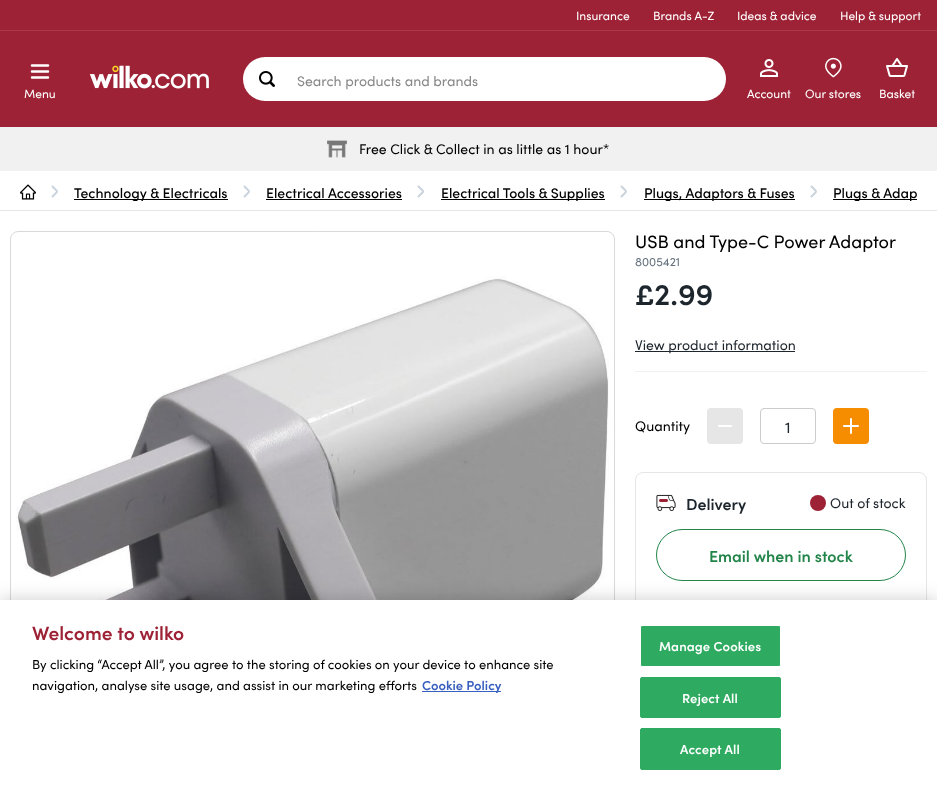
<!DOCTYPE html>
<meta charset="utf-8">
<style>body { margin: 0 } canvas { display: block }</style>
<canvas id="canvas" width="937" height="790"></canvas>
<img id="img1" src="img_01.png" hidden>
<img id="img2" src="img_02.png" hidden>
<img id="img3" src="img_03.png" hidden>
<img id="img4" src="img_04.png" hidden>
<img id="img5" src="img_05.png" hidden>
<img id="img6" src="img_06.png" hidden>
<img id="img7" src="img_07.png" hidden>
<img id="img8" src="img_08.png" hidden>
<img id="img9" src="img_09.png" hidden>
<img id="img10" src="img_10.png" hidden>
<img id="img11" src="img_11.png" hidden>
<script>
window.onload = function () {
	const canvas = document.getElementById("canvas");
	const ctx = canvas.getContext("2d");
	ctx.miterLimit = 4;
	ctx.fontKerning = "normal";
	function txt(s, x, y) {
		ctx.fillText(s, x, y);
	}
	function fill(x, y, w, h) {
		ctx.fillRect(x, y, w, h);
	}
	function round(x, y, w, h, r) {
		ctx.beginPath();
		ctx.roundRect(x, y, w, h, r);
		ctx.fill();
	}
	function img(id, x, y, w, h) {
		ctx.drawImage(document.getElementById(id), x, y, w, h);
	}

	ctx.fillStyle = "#FFFFFF";
	fill(0, 0, 937, 790);
	ctx.fillStyle = "#9D2235";
	fill(0, 0, 937, 127);
	ctx.fillStyle = "#A73849";
	fill(0, 30, 937, 1);
	ctx.fillStyle = "#FFFFFF";
	round(243, 57, 483, 44, 22);
	img("img1", 259, 71, 16, 16);
	img("img2", 89, 65, 120, 24);
	ctx.beginPath();
	ctx.moveTo(32, 71.5);
	ctx.lineTo(48, 71.5);
	ctx.moveTo(32, 65.5);
	ctx.lineTo(48, 65.5);
	ctx.moveTo(32, 77.5);
	ctx.lineTo(48, 77.5);
	ctx.strokeStyle = "#FFFFFF";
	ctx.lineWidth = 2.5;
	ctx.lineCap = "round";
	ctx.stroke();
	img("img3", 760, 59, 18, 18);
	img("img4", 825, 57, 17, 21);
	img("img5", 886, 58, 22, 19);
	ctx.fillStyle = "#F1F1F1";
	fill(0, 127, 937, 44);
	img("img6", 327, 140, 20, 18);
	ctx.fillStyle = "#E6E6E6";
	fill(0, 210, 937, 1);
	img("img7", 20, 184, 16, 16);
	ctx.beginPath();
	ctx.moveTo(52.5, 186.5);
	ctx.lineTo(56.5, 190.5);
	ctx.bezierCurveTo(57.5, 191.5, 57.5, 191.5, 56.5, 192.5);
	ctx.lineTo(52.5, 196.5);
	ctx.strokeStyle = "#CAD3DC";
	ctx.lineWidth = 2;
	ctx.lineJoin = "round";
	ctx.stroke();
	ctx.fillStyle = "#000000";
	fill(74, 199, 154, 1);
	ctx.beginPath();
	ctx.moveTo(244.5, 186.5);
	ctx.lineTo(248.5, 190.5);
	ctx.bezierCurveTo(249.5, 191.5, 249.5, 191.5, 248.5, 192.5);
	ctx.lineTo(244.5, 196.5);
	ctx.stroke();
	fill(266, 199, 136, 1);
	ctx.beginPath();
	ctx.moveTo(418.5, 186.5);
	ctx.lineTo(422.5, 190.5);
	ctx.bezierCurveTo(423.5, 191.5, 423.5, 191.5, 422.5, 192.5);
	ctx.lineTo(418.5, 196.5);
	ctx.stroke();
	fill(441, 199, 164, 1);
	ctx.beginPath();
	ctx.moveTo(621.5, 186.5);
	ctx.lineTo(625.5, 190.5);
	ctx.bezierCurveTo(626.5, 191.5, 626.5, 191.5, 625.5, 192.5);
	ctx.lineTo(621.5, 196.5);
	ctx.stroke();
	fill(644, 199, 151, 1);
	ctx.beginPath();
	ctx.moveTo(811.5, 186.5);
	ctx.lineTo(815.5, 190.5);
	ctx.bezierCurveTo(816.5, 191.5, 816.5, 191.5, 815.5, 192.5);
	ctx.lineTo(811.5, 196.5);
	ctx.stroke();
	fill(833, 199, 84, 1);
	ctx.beginPath();
	ctx.roundRect(10.5, 231.5, 604, 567, 7.5);
	ctx.strokeStyle = "#D9D9D9";
	ctx.lineWidth = 1;
	ctx.lineJoin = "miter";
	ctx.stroke();
	img("img8", 16, 276, 593, 324);
	ctx.fillStyle = "#1D252D";
	fill(635, 351, 160, 1);
	ctx.fillStyle = "#F1F1F1";
	fill(635, 371, 292, 1);
	ctx.fillStyle = "#E6E6E6";
	ctx.beginPath();
	ctx.roundRect(708.5, 409.5, 33, 33, 2.5);
	ctx.fill();
	ctx.strokeStyle = "#E6E6E6";
	ctx.lineWidth = 3;
	ctx.stroke();
	img("img9", 718, 425, 14, 2);
	ctx.beginPath();
	ctx.roundRect(760.5, 408.5, 55, 35, 3.5);
	ctx.strokeStyle = "#CCCCCC";
	ctx.lineWidth = 1;
	ctx.stroke();
	ctx.fillStyle = "#F68D00";
	ctx.beginPath();
	ctx.roundRect(834.5, 409.5, 33, 33, 2.5);
	ctx.fill();
	ctx.strokeStyle = "#F68D00";
	ctx.lineWidth = 3;
	ctx.stroke();
	img("img10", 843, 418, 16, 16);
	ctx.beginPath();
	ctx.roundRect(635.5, 472.5, 291, 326, 7.5);
	ctx.strokeStyle = "#E6E6E6";
	ctx.lineWidth = 1;
	ctx.stroke();
	img("img11", 656, 494, 20, 17);
	ctx.fillStyle = "#9D2235";
	ctx.beginPath();
	ctx.arc(818, 503, 8, 0, Math.PI * 2);
	ctx.fill();
	ctx.beginPath();
	ctx.roundRect(656.5, 529.5, 249, 51, 25.5);
	ctx.strokeStyle = "#23854A";
	ctx.stroke();
	ctx.fillStyle = "rgba(0, 0, 0, 0.2)";
	ctx.filter = "blur(9px)";
	ctx.beginPath();
	ctx.rect(0, 600, 937, 190);
	ctx.fill();
	ctx.filter = "none";
	ctx.fillStyle = "#FFFFFF";
	fill(0, 600, 937, 190);
	ctx.fillStyle = "#3860BE";
	fill(422, 691, 79, 1);
	ctx.fillStyle = "#2EAB60";
	ctx.beginPath();
	ctx.roundRect(640.5, 625.5, 140, 41, 1.5);
	ctx.fill();
	ctx.strokeStyle = "#FFFFFF";
	ctx.stroke();
	ctx.beginPath();
	ctx.roundRect(640.5, 677.5, 140, 40, 1.5);
	ctx.fill();
	ctx.strokeStyle = "#2EAB60";
	ctx.stroke();
	ctx.beginPath();
	ctx.roundRect(640.5, 728.5, 140, 41, 1.5);
	ctx.fill();
	ctx.stroke();
	ctx.font = "12px Sofia";
	ctx.fillStyle = "#FFFFFF";
	txt("Insurance", 576, 20);
	txt("Brands A-Z", 653, 20);
	txt("Ideas & advice", 737, 20);
	txt("Help & support", 840, 20);
	ctx.font = "14px Sofia";
	ctx.fillStyle = "#888888";
	txt("Search products and brands", 297, 86);
	ctx.font = "12px Sofia";
	ctx.fillStyle = "#FFFFFF";
	txt("Menu", 24, 98);
	txt("Account", 747, 98);
	txt("Our stores", 805, 98);
	txt("Basket", 879, 98);
	ctx.font = "14px Sofia";
	ctx.fillStyle = "#000000";
	txt("Free Click & Collect in as little as 1 hour*", 359, 154);
	ctx.save();
	ctx.beginPath();
	ctx.rect(20, 181, 897, 20);
	ctx.clip();
	ctx.font = "500 14px Sofia";
	txt("Technology & Electricals", 74, 198);
	ctx.restore();
	ctx.font = "500 14px Sofia";
	txt("Electrical Accessories", 266, 198);
	ctx.save();
	ctx.beginPath();
	ctx.rect(20, 181, 897, 20);
	ctx.clip();
	txt("Electrical Tools & Supplies", 441, 198);
	txt("Plugs, Adaptors & Fuses", 644, 198);
	txt("Plugs & Adap", 833, 198);
	ctx.restore();
	ctx.font = "18px Sofia";
	txt("USB and Type-C Power Adaptor", 635, 248);
	ctx.font = "12px Sofia";
	ctx.fillStyle = "#65727E";
	txt("8005421", 635, 266);
	ctx.font = "600 30px Sofia";
	ctx.fillStyle = "#1D252D";
	txt("£2.99", 635, 305);
	ctx.font = "14px Sofia";
	txt("View product information", 635, 350);
	ctx.fillStyle = "#000000";
	txt("Quantity", 635, 431);
	ctx.font = "16px Sofia";
	ctx.fillStyle = "#1D252D";
	txt("1", 785, 433);
	ctx.font = "600 16px Sofia";
	txt("Delivery", 686, 510);
	ctx.font = "14px Sofia";
	txt("Out of stock", 830, 508);
	ctx.font = "600 16px Sofia";
	ctx.fillStyle = "#23854A";
	txt("Email when in stock", 709, 562);
	ctx.font = "600 19.25px Sofia";
	ctx.fillStyle = "#9D2235";
	txt("Welcome to wilko", 32, 640);
	ctx.font = "13px Sofia";
	ctx.fillStyle = "#000000";
	txt("By clicking “Accept All”, you agree to the storing of cookies on your device to enhance site", 32, 669);
	txt("navigation, analyse site usage, and assist in our marketing efforts", 32, 690);
	ctx.font = "600 13px Sofia";
	ctx.fillStyle = "#3860BE";
	txt("Cookie Policy", 422, 690);
	ctx.letterSpacing = "0.1px";
	ctx.fillStyle = "#FFFFFF";
	txt("Manage Cookies", 659, 651);
	txt("Reject All", 682, 703);
	txt("Accept All", 680, 754);
};
</script>
